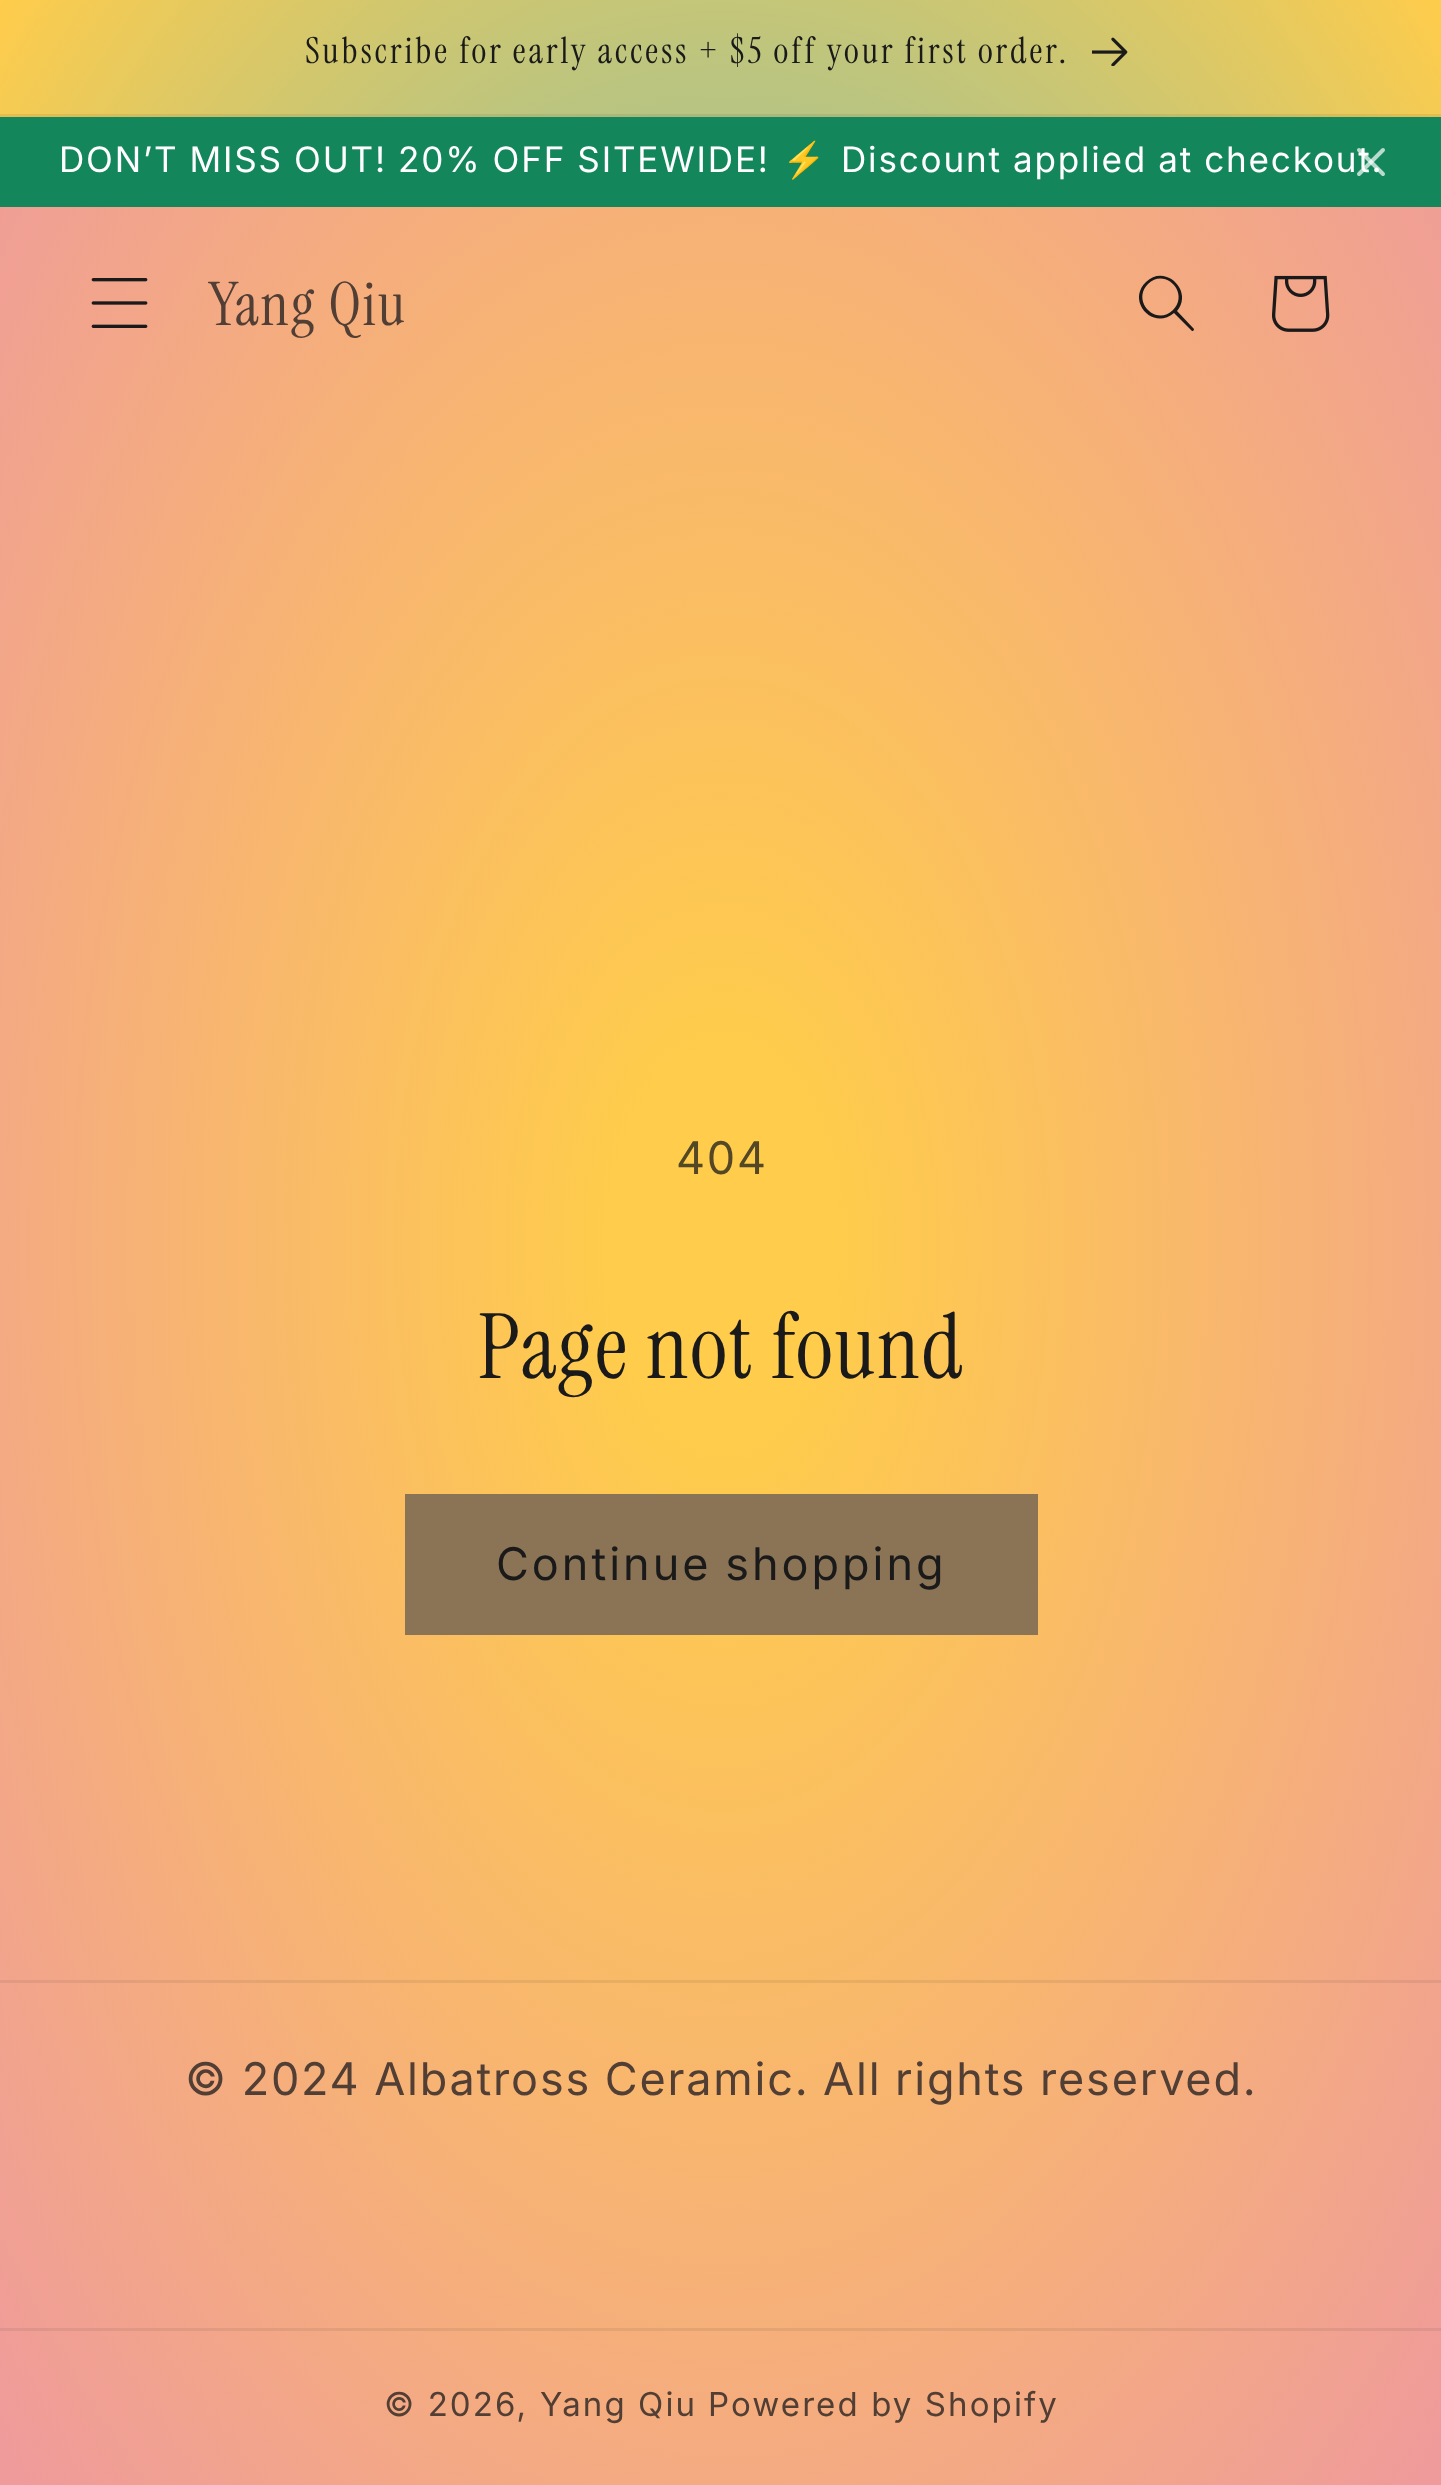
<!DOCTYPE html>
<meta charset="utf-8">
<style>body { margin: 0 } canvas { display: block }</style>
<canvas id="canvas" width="1441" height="2485"></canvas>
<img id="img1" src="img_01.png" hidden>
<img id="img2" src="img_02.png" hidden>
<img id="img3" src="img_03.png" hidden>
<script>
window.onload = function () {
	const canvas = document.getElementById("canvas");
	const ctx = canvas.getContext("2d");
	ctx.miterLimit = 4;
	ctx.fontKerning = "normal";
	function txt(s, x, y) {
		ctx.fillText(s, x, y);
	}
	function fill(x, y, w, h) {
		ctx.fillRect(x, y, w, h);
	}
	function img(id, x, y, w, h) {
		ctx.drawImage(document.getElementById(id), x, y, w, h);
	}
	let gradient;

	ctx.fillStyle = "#FFFFFF";
	fill(0, 0, 1441, 2485);
	gradient = ctx.createRadialGradient(722, 721.36, 0, 722, 721.36, 1020);
	gradient.addColorStop(0.11, "#FFCC4B");
	gradient.addColorStop(0.98, "#EF9B9B");
	ctx.fillStyle = gradient;
	ctx.beginPath();
	ctx.rect(0, 207, 1441, 2278);
	ctx.save();
	ctx.clip();
	ctx.scale(1, 1759 / 1020);
	ctx.fillRect(0, 0, 1441, 1441);
	ctx.restore();
	gradient = ctx.createRadialGradient(722, 721.36, 0, 722, 721.36, 1020);
	gradient.addColorStop(0.11, "#EDBE47");
	gradient.addColorStop(0.98, "#DE9191");
	ctx.fillStyle = gradient;
	ctx.beginPath();
	ctx.rect(0, 2328, 1441, 3);
	ctx.save();
	ctx.clip();
	ctx.scale(1, 1759 / 1020);
	ctx.fillRect(0, 0, 1441, 1441);
	ctx.restore();
	ctx.beginPath();
	ctx.rect(0, 1980, 1441, 3);
	ctx.save();
	ctx.clip();
	ctx.scale(1, 1759 / 1020);
	ctx.fillRect(0, 0, 1441, 1441);
	ctx.restore();
	gradient = ctx.createRadialGradient(722, 721.36, 0, 722, 721.36, 1020);
	gradient.addColorStop(0, "#35B6E6");
	gradient.addColorStop(1, "#FFCC4B");
	ctx.fillStyle = gradient;
	ctx.beginPath();
	ctx.rect(0, 0, 1441, 114);
	ctx.save();
	ctx.clip();
	ctx.scale(1, 1759 / 1020);
	ctx.fillRect(0, 0, 1441, 1441);
	ctx.restore();
	gradient = ctx.createRadialGradient(722, 721.36, 0, 722, 721.36, 1020);
	gradient.addColorStop(0, "#33AAD6");
	gradient.addColorStop(1, "#EDBE47");
	ctx.fillStyle = gradient;
	ctx.beginPath();
	ctx.rect(0, 114, 1441, 3);
	ctx.save();
	ctx.clip();
	ctx.scale(1, 1759 / 1020);
	ctx.fillRect(0, 0, 1441, 1441);
	ctx.restore();
	img("img1", 1092, 37, 36, 29);
	ctx.fillStyle = "#13865C";
	fill(0, 117, 1441, 90);
	img("img2", 91, 278, 57, 50);
	ctx.fillStyle = "#1A1A1A";
	ctx.beginPath();
	ctx.moveTo(1173, 310);
	ctx.bezierCurveTo(1156, 327, 1131, 301, 1148, 284);
	ctx.bezierCurveTo(1165, 267, 1190, 293, 1173, 310);
	ctx.moveTo(1174, 313);
	ctx.bezierCurveTo(1153, 331, 1126, 301, 1146, 282);
	ctx.bezierCurveTo(1165, 263, 1194, 291, 1177, 311);
	ctx.lineTo(1194, 329);
	ctx.bezierCurveTo(1194, 331, 1192, 332, 1191, 330);
	ctx.closePath();
	ctx.fill("evenodd");
	img("img3", 1272, 275, 58, 57);
	ctx.fillStyle = "#8B7355";
	fill(405, 1494, 633, 141);
	ctx.letterSpacing = "3px";
	ctx.font = "36px Instrument Serif";
	ctx.fillStyle = "#1A1A1A";
	txt("Subscribe for early access + $5 off your first order.", 305, 63);
	ctx.letterSpacing = "1.8px";
	ctx.wordSpacing = "-0.5px";
	ctx.font = "35.1px Inter";
	ctx.fillStyle = "#FFFFFF";
	txt("DON’T MISS OUT! 20% OFF SITEWIDE!", 59, 172);
	ctx.wordSpacing = "0px";
	ctx.font = "35.1px Noto Color Emoji";
	txt("⚡️", 782, 172);
	ctx.wordSpacing = "-0.5px";
	ctx.font = "35.1px Inter";
	txt("Discount applied at checkout.", 841, 172);
	ctx.beginPath();
	ctx.moveTo(1383, 150);
	ctx.lineTo(1359, 174);
	ctx.strokeStyle = "rgba(255, 255, 255, 0.7)";
	ctx.lineWidth = 4;
	ctx.lineCap = "round";
	ctx.lineJoin = "round";
	ctx.stroke();
	ctx.beginPath();
	ctx.moveTo(1359, 150);
	ctx.lineTo(1383, 174);
	ctx.stroke();
	ctx.wordSpacing = "0px";
	ctx.font = "60px Instrument Serif";
	ctx.fillStyle = "#513E34";
	txt("Yang Qiu", 209, 325);
	ctx.font = "45px Inter";
	ctx.fillStyle = "#534726";
	txt("404", 676, 1174);
	ctx.font = "90px Instrument Serif";
	ctx.fillStyle = "#1A1A1A";
	txt("Page not found", 478, 1378);
	ctx.letterSpacing = "3px";
	ctx.wordSpacing = "-2px";
	ctx.font = "45px Inter";
	txt("Continue shopping", 496, 1580);
	ctx.letterSpacing = "1.8px";
	ctx.wordSpacing = "-0.75px";
	ctx.fillStyle = "#513E34";
	txt("© 2024 Albatross Ceramic. All rights reserved.", 185, 2095);
	ctx.letterSpacing = "2.1px";
	ctx.wordSpacing = "0px";
	ctx.font = "33px Inter";
	txt("© 2026,", 384, 2416);
	txt("Yang Qiu", 540, 2416);
	txt("Powered by Shopify", 708, 2416);
};
</script>
